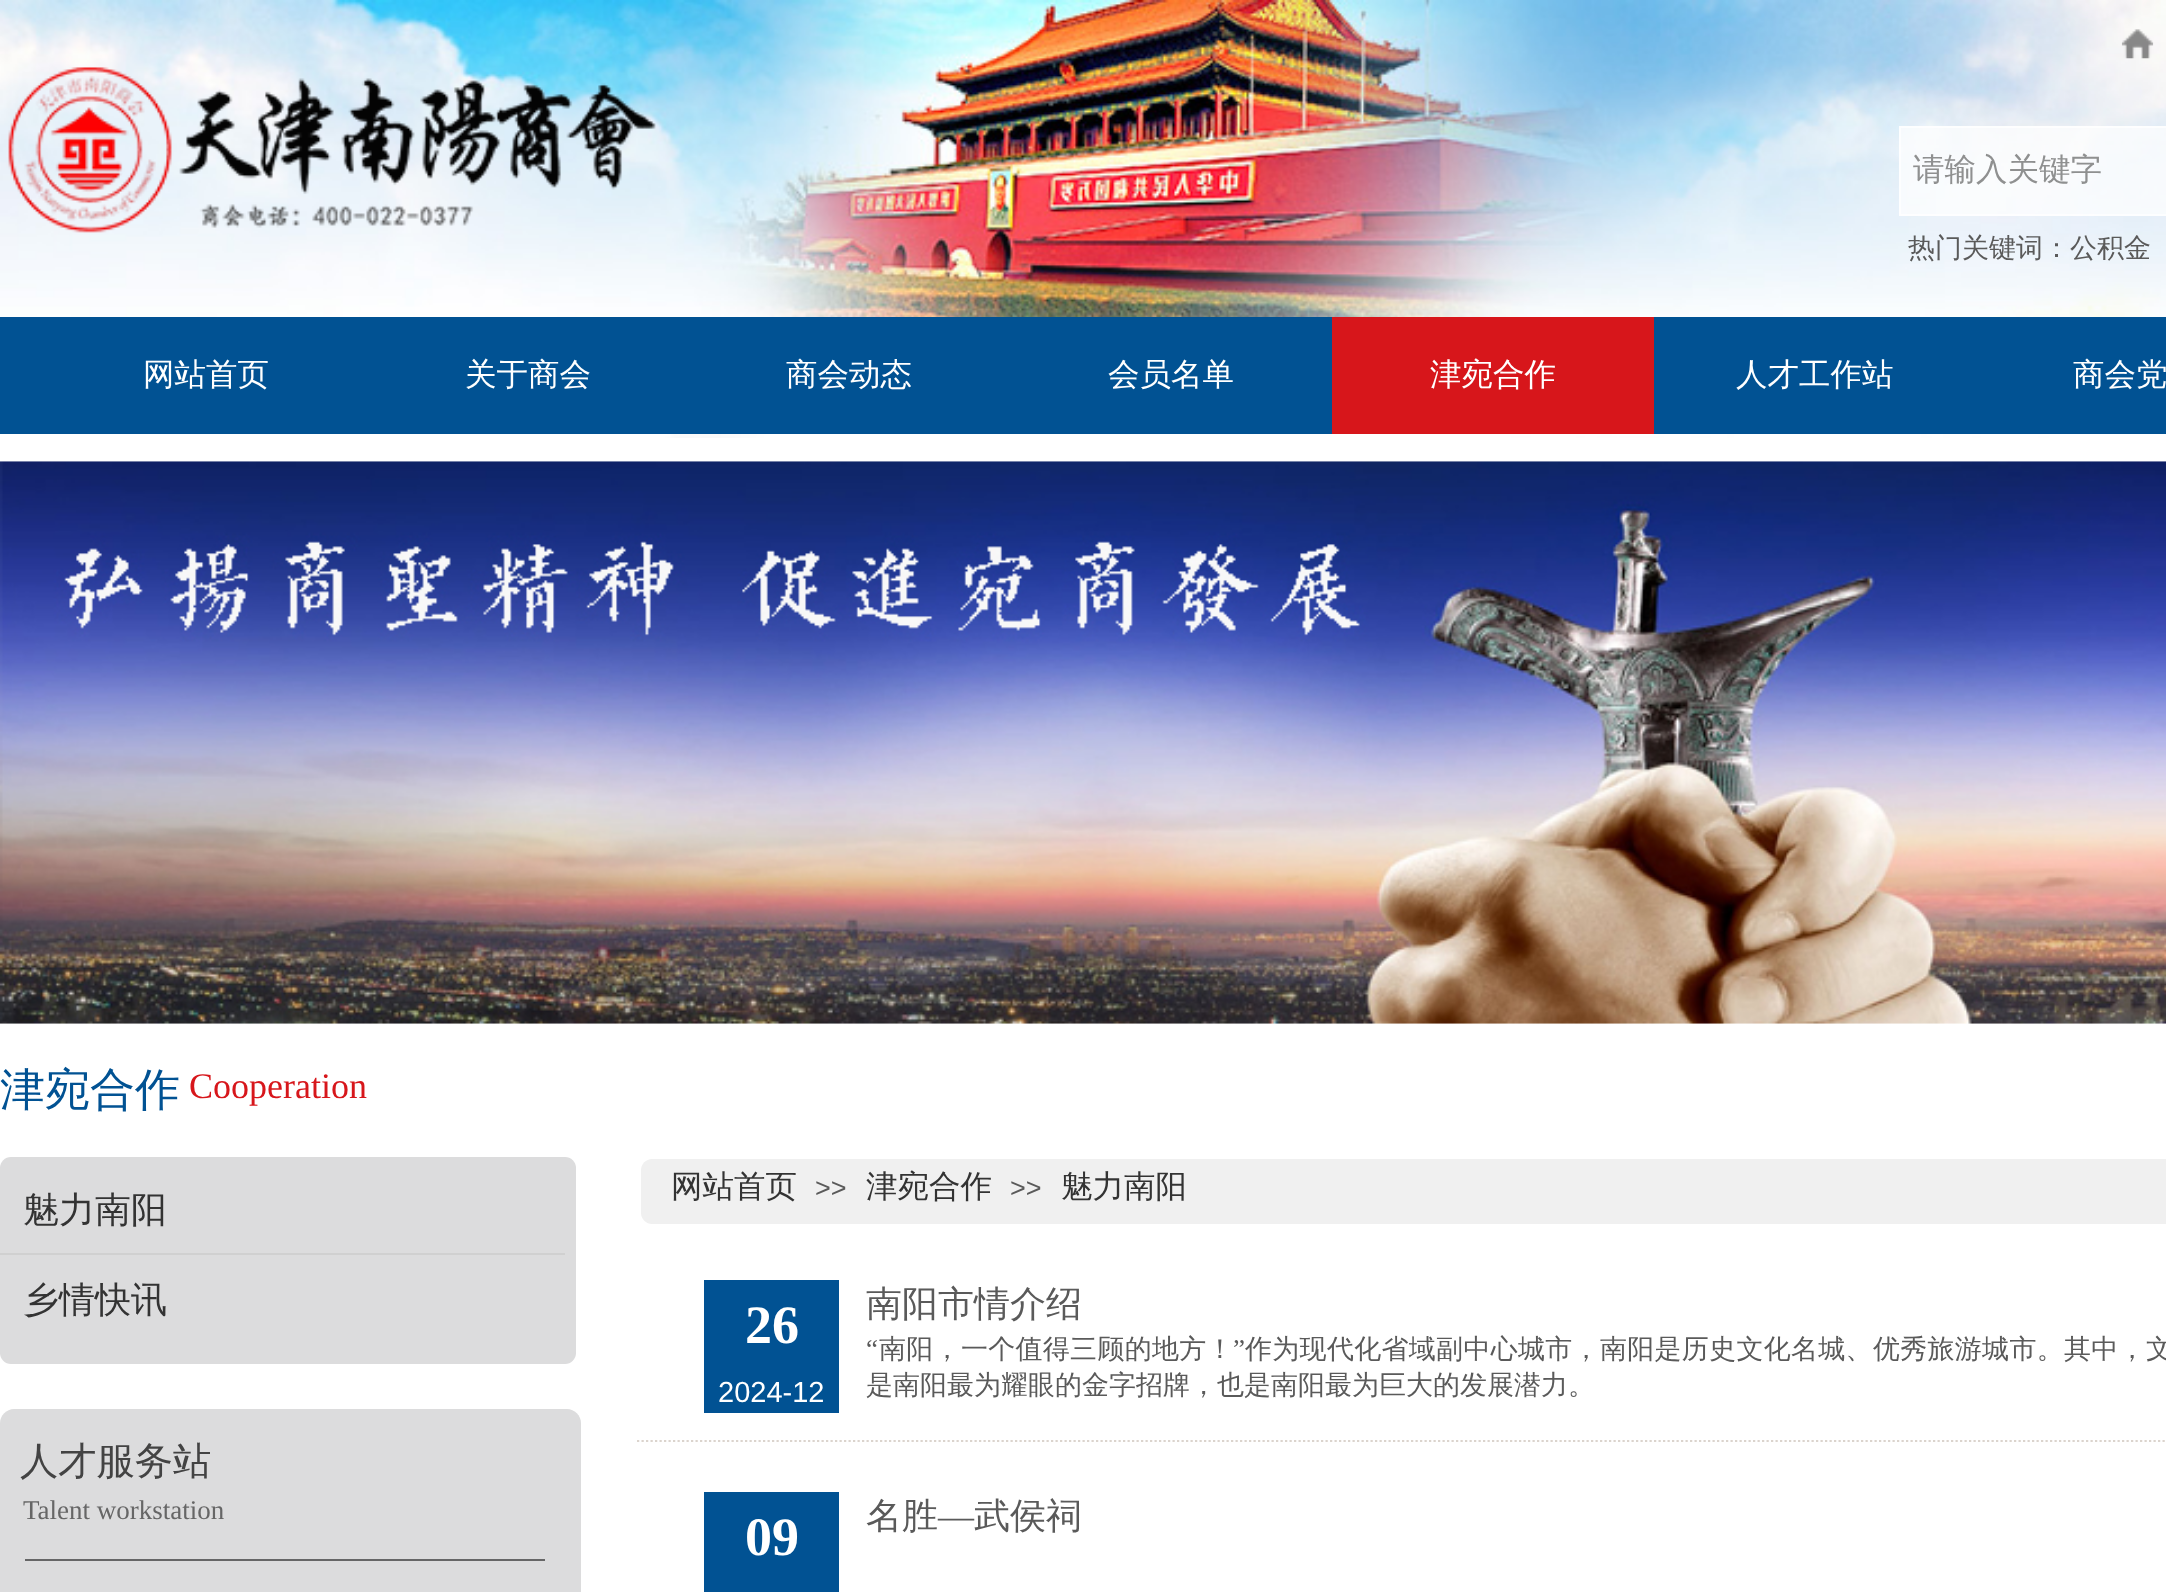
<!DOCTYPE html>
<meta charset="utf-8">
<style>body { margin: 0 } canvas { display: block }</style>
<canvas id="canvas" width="2166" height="1592"></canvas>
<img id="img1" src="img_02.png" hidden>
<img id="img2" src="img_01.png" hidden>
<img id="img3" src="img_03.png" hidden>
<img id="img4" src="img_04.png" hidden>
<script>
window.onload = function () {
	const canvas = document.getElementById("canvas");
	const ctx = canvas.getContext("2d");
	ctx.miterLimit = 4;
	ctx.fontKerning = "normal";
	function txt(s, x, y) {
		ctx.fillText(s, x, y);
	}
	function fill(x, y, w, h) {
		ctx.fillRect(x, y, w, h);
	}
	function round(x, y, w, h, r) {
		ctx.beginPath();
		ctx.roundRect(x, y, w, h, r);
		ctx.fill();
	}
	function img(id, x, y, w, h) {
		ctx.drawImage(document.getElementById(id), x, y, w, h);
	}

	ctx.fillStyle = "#FFFFFF";
	fill(0, 0, 2166, 1592);
	img("img1", 0, 0, 2166, 438);
	img("img2", 2121, 29, 33, 30);
	img("img3", 8, 67, 648, 166);
	ctx.fillStyle = "rgba(255, 255, 255, 0.72)";
	fill(1899, 126, 267, 90);
	ctx.strokeStyle = "rgba(255, 255, 255, 0.72)";
	ctx.lineWidth = 2;
	ctx.strokeRect(1900, 127, 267, 88);
	ctx.fillStyle = "#015293";
	fill(0, 317, 2166, 117);
	ctx.fillStyle = "#D7161B";
	fill(1332, 317, 322, 117);
	img("img4", 0, 461, 2166, 563);
	ctx.fillStyle = "#DCDCDD";
	round(0, 1157, 576, 207, 11);
	ctx.fillStyle = "#F0F0F0";
	ctx.beginPath();
	ctx.moveTo(652, 1159);
	ctx.lineTo(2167, 1159);
	ctx.lineTo(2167, 1224);
	ctx.lineTo(652, 1224);
	ctx.bezierCurveTo(646, 1224, 641, 1219, 641, 1213);
	ctx.lineTo(641, 1170);
	ctx.bezierCurveTo(641, 1164, 646, 1159, 652, 1159);
	ctx.closePath();
	ctx.fill();
	ctx.fillStyle = "#D0D0D0";
	fill(0, 1253, 565, 2);
	ctx.fillStyle = "#DCDCDD";
	ctx.beginPath();
	ctx.moveTo(14, 1409);
	ctx.lineTo(567, 1409);
	ctx.bezierCurveTo(574.5, 1409, 581, 1415.5, 581, 1423);
	ctx.lineTo(581, 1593);
	ctx.lineTo(0, 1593);
	ctx.lineTo(0, 1423);
	ctx.bezierCurveTo(0, 1415.5, 6.5, 1409, 14, 1409);
	ctx.closePath();
	ctx.fill();
	ctx.fillStyle = "#666666";
	fill(25, 1559, 520, 2);
	ctx.beginPath();
	ctx.moveTo(637, 1441);
	ctx.lineTo(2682, 1441);
	ctx.strokeStyle = "#DBD4CD";
	ctx.lineWidth = 2.2;
	ctx.setLineDash([2.25, 2.25]);
	ctx.stroke();
	ctx.fillStyle = "#015293";
	fill(704, 1280, 135, 133);
	fill(704, 1492, 135, 100);
	ctx.font = "500 31.5px WenQuanYi Zen Hei";
	ctx.fillStyle = "#8F9090";
	txt("请输入关键字", 1913, 180);
	ctx.font = "500 27px WenQuanYi Zen Hei";
	ctx.fillStyle = "#5A5A5A";
	txt("热门关键词：公积金", 1908, 257);
	ctx.font = "500 31.5px WenQuanYi Zen Hei";
	ctx.fillStyle = "#FFFFFF";
	txt("网站首页", 143, 385);
	txt("关于商会", 465, 385);
	txt("商会动态", 786, 385);
	txt("会员名单", 1108, 385);
	txt("津宛合作", 1430, 385);
	txt("人才工作站", 1736, 385);
	txt("商会党", 2073, 385);
	ctx.font = "500 45px WenQuanYi Zen Hei";
	ctx.fillStyle = "#015293";
	txt("津宛合作", 0, 1105);
	ctx.font = "36px Liberation Serif";
	ctx.fillStyle = "#D7161B";
	txt("Cooperation", 189, 1098);
	ctx.font = "500 31.5px WenQuanYi Zen Hei";
	ctx.fillStyle = "#333333";
	txt("网站首页", 671, 1197);
	ctx.font = "27px Liberation Sans";
	ctx.fillStyle = "#5A5A5A";
	txt(">>", 815, 1197);
	ctx.font = "500 31.5px WenQuanYi Zen Hei";
	ctx.fillStyle = "#333333";
	txt("津宛合作", 866, 1197);
	ctx.font = "27px Liberation Sans";
	ctx.fillStyle = "#5A5A5A";
	txt(">>", 1010, 1197);
	ctx.font = "500 31.5px WenQuanYi Zen Hei";
	ctx.fillStyle = "#333333";
	txt("魅力南阳", 1061, 1197);
	ctx.font = "500 36px WenQuanYi Zen Hei";
	txt("魅力南阳", 23, 1222);
	txt("乡情快讯", 23, 1312);
	ctx.font = "500 38.25px WenQuanYi Zen Hei";
	ctx.fillStyle = "#434343";
	txt("人才服务站", 20, 1474);
	ctx.font = "27px Liberation Serif";
	ctx.fillStyle = "#666666";
	txt("Talent workstation", 23, 1519);
	ctx.font = "bold 54px Liberation Serif";
	ctx.fillStyle = "#FFFFFF";
	txt("26", 745, 1343);
	ctx.font = "29px Liberation Sans";
	txt("2024-12", 718, 1402);
	ctx.font = "500 36px WenQuanYi Zen Hei";
	ctx.fillStyle = "#5A5A5A";
	txt("南阳市情介绍", 866, 1316);
	ctx.letterSpacing = "0.3px";
	ctx.font = "27px Liberation Serif";
	txt("“", 866, 1358);
	ctx.font = "500 27px WenQuanYi Zen Hei";
	txt("南阳，一个值得三顾的地方！", 879, 1358);
	ctx.font = "27px Liberation Serif";
	txt("”", 1233, 1358);
	ctx.font = "500 27px WenQuanYi Zen Hei";
	txt("作为现代化省域副中心城市，南阳是历史文化名城、优秀旅游城市。其中，文", 1245, 1358);
	ctx.letterSpacing = "0px";
	txt("是南阳最为耀眼的金字招牌，也是南阳最为巨大的发展潜力。", 866, 1394);
	ctx.font = "500 36px WenQuanYi Zen Hei";
	txt("名胜", 866, 1528);
	ctx.font = "36px Liberation Serif";
	txt("—", 938, 1528);
	ctx.font = "500 36px WenQuanYi Zen Hei";
	txt("武侯祠", 974, 1528);
	ctx.font = "bold 54px Liberation Serif";
	ctx.fillStyle = "#FFFFFF";
	txt("09", 745, 1555);
};
</script>
